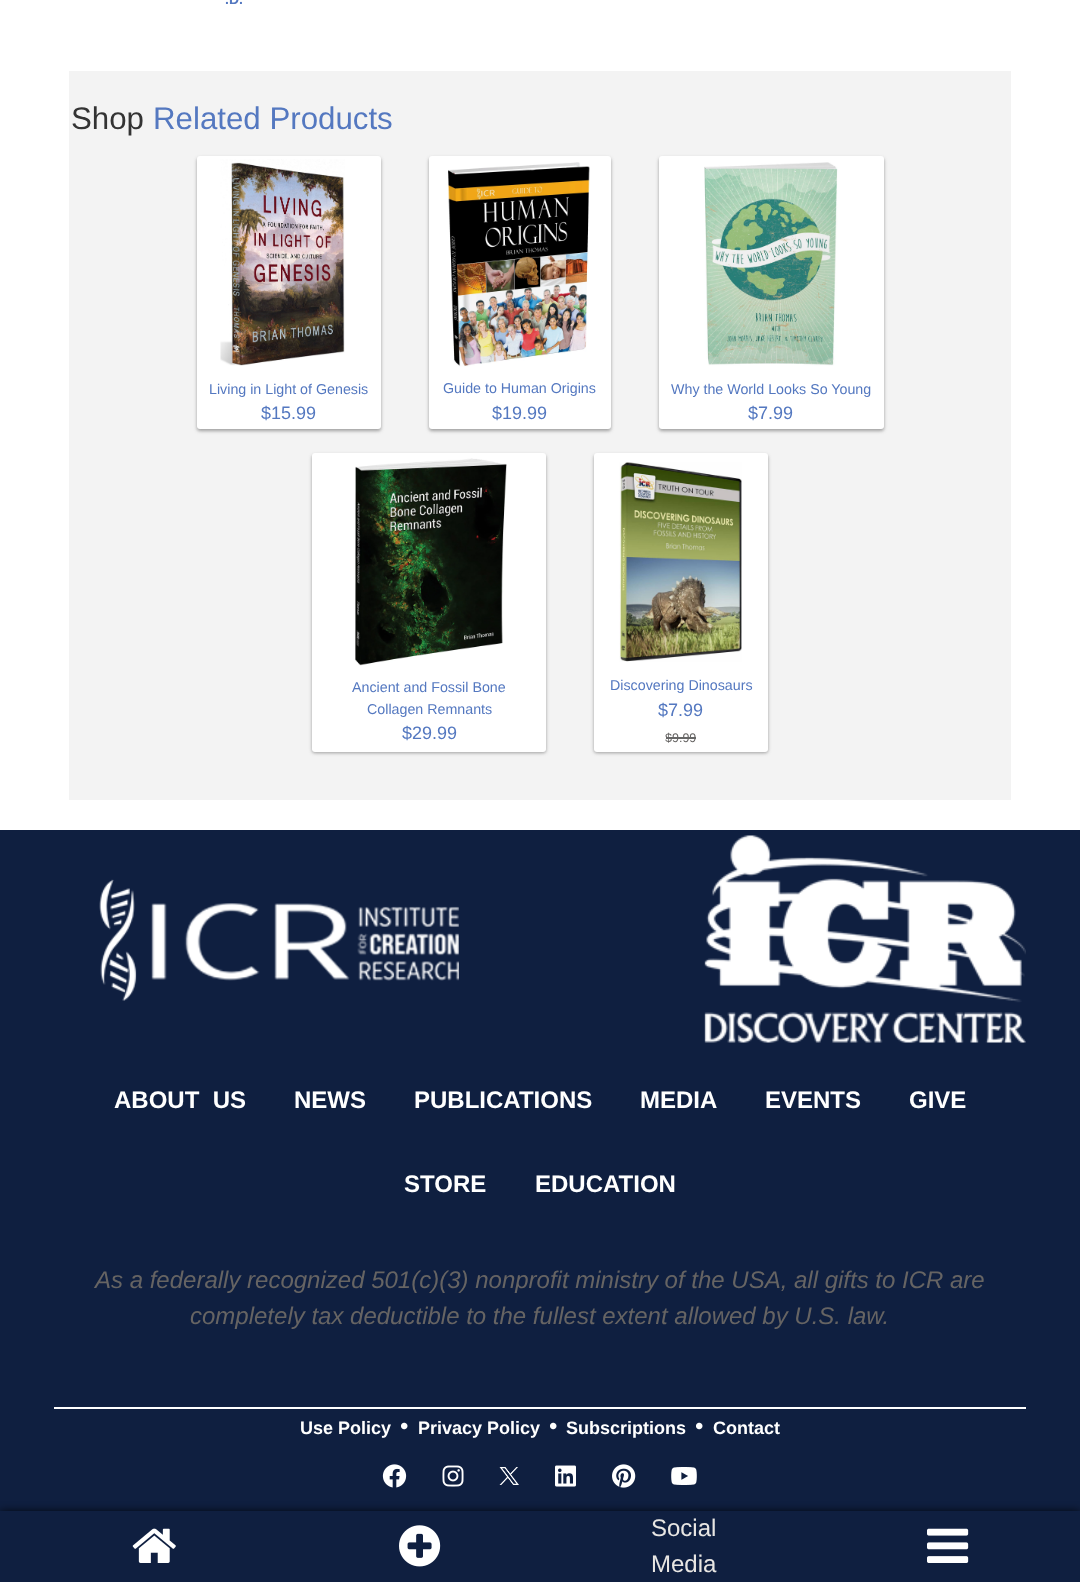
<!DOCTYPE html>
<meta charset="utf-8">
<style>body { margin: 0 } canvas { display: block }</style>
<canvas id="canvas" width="1080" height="1582"></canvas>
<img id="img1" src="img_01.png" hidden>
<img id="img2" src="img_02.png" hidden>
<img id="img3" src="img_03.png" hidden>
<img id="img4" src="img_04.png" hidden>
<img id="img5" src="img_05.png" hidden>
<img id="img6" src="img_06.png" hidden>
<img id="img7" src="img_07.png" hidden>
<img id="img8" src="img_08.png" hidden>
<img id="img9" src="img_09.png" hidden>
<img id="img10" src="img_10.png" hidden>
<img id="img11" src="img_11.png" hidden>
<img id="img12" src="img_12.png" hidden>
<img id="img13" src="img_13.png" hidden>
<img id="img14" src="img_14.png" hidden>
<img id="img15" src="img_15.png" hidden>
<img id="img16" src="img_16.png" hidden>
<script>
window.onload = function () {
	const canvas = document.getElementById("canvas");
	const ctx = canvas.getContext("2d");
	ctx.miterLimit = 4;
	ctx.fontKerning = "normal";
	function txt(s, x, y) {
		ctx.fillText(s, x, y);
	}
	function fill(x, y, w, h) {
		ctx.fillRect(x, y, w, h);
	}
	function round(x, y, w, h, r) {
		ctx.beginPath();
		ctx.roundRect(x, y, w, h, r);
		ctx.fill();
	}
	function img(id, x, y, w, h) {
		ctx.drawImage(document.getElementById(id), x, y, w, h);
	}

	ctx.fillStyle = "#FFFFFF";
	fill(0, 0, 1080, 1582);
	ctx.fillStyle = "#F3F3F3";
	fill(69, 71, 942, 729);
	ctx.fillStyle = "rgba(0, 0, 0, 0.24)";
	ctx.filter = "blur(1.5px)";
	ctx.beginPath();
	ctx.roundRect(197, 158, 184, 273, 3);
	ctx.fill();
	ctx.filter = "none";
	ctx.fillStyle = "rgba(0, 0, 0, 0.12)";
	ctx.filter = "blur(2px)";
	ctx.beginPath();
	ctx.roundRect(197, 158, 184, 273, 3);
	ctx.fill();
	ctx.filter = "none";
	ctx.fillStyle = "#FFFFFF";
	round(197, 156, 184, 273, 3);
	img("img1", 220, 159, 125, 207);
	ctx.fillStyle = "rgba(0, 0, 0, 0.24)";
	ctx.filter = "blur(1.5px)";
	ctx.beginPath();
	ctx.roundRect(429, 158, 182, 273, 3);
	ctx.fill();
	ctx.filter = "none";
	ctx.fillStyle = "rgba(0, 0, 0, 0.12)";
	ctx.filter = "blur(2px)";
	ctx.beginPath();
	ctx.roundRect(429, 158, 182, 273, 3);
	ctx.fill();
	ctx.filter = "none";
	ctx.fillStyle = "#FFFFFF";
	round(429, 156, 182, 273, 3);
	img("img2", 448, 162, 142, 205);
	ctx.fillStyle = "rgba(0, 0, 0, 0.24)";
	ctx.filter = "blur(1.5px)";
	ctx.beginPath();
	ctx.roundRect(659, 158, 225, 273, 3);
	ctx.fill();
	ctx.filter = "none";
	ctx.fillStyle = "rgba(0, 0, 0, 0.12)";
	ctx.filter = "blur(2px)";
	ctx.beginPath();
	ctx.roundRect(659, 158, 225, 273, 3);
	ctx.fill();
	ctx.filter = "none";
	ctx.fillStyle = "#FFFFFF";
	round(659, 156, 225, 273, 3);
	img("img3", 704, 162, 134, 204);
	ctx.fillStyle = "rgba(0, 0, 0, 0.24)";
	ctx.filter = "blur(1.5px)";
	ctx.beginPath();
	ctx.roundRect(312, 455, 234, 298, 3);
	ctx.fill();
	ctx.filter = "none";
	ctx.fillStyle = "rgba(0, 0, 0, 0.12)";
	ctx.filter = "blur(2px)";
	ctx.beginPath();
	ctx.roundRect(312, 455, 234, 298, 3);
	ctx.fill();
	ctx.filter = "none";
	ctx.fillStyle = "#FFFFFF";
	round(312, 453, 234, 299, 3);
	img("img4", 355, 458, 152, 208);
	ctx.fillStyle = "rgba(0, 0, 0, 0.24)";
	ctx.filter = "blur(1.5px)";
	ctx.beginPath();
	ctx.roundRect(594, 455, 174, 298, 3);
	ctx.fill();
	ctx.filter = "none";
	ctx.fillStyle = "rgba(0, 0, 0, 0.12)";
	ctx.filter = "blur(2px)";
	ctx.beginPath();
	ctx.roundRect(594, 455, 174, 298, 3);
	ctx.fill();
	ctx.filter = "none";
	ctx.fillStyle = "#FFFFFF";
	round(594, 453, 174, 299, 3);
	img("img5", 619, 462, 123, 200);
	ctx.fillStyle = "#0F1F40";
	fill(0, 830, 1080, 681);
	img("img6", 99, 879, 360, 122);
	img("img7", 704, 835, 322, 208);
	ctx.fillStyle = "#FFFFFF";
	fill(54, 1407, 972, 2);
	img("img8", 382, 1464, 25, 24);
	img("img9", 442, 1465, 22, 22);
	img("img10", 499, 1467, 20, 18);
	img("img11", 555, 1465, 21, 22);
	img("img12", 612, 1464, 24, 24);
	img("img13", 671, 1467, 26, 18);
	ctx.fillStyle = "rgba(0, 0, 0, 0.75)";
	ctx.filter = "blur(4px)";
	ctx.beginPath();
	ctx.rect(0, 1511, 1080, 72);
	ctx.fill();
	ctx.filter = "none";
	ctx.fillStyle = "#0F1F40";
	fill(0, 1511, 1080, 71);
	img("img14", 132, 1528, 44, 35);
	img("img15", 399, 1525, 42, 42);
	img("img16", 927, 1528, 42, 35);
	ctx.font = "bold 14px Liberation Sans";
	ctx.fillStyle = "#5478C0";
	txt(".D.", 225, 4);
	ctx.font = "31.25px Liberation Sans";
	ctx.fillStyle = "#333333";
	txt("Shop", 71, 129);
	ctx.fillStyle = "#5478C0";
	txt("Related Products", 153, 129);
	ctx.font = "14.25px Liberation Sans";
	txt("Living in Light of Genesis", 209, 394);
	ctx.font = "18px Liberation Sans";
	txt("$15.99", 261, 419);
	ctx.font = "14.25px Liberation Sans";
	txt("Guide to Human Origins", 443, 393);
	ctx.font = "18px Liberation Sans";
	txt("$19.99", 492, 419);
	ctx.font = "14.25px Liberation Sans";
	txt("Why the World Looks So Young", 671, 394);
	ctx.font = "18px Liberation Sans";
	txt("$7.99", 748, 419);
	ctx.font = "14.25px Liberation Sans";
	txt("Ancient and Fossil Bone", 352, 692);
	txt("Collagen Remnants", 367, 714);
	ctx.font = "18px Liberation Sans";
	txt("$29.99", 402, 739);
	ctx.font = "14.25px Liberation Sans";
	txt("Discovering Dinosaurs", 610, 690);
	ctx.font = "18px Liberation Sans";
	txt("$7.99", 658, 716);
	ctx.font = "12.5px Liberation Sans";
	ctx.fillStyle = "#666463";
	txt("$9.99", 665, 742);
	ctx.fillStyle = "#666666";
	fill(666, 737, 30, 2);
	ctx.font = "bold 24px Liberation Sans";
	ctx.fillStyle = "#FFFFFF";
	txt("ABOUT  US", 114, 1108);
	txt("NEWS", 294, 1108);
	txt("PUBLICATIONS", 414, 1108);
	txt("MEDIA", 640, 1108);
	txt("EVENTS", 765, 1108);
	txt("GIVE", 909, 1108);
	txt("STORE", 404, 1192);
	txt("EDUCATION", 535, 1192);
	ctx.font = "italic 24px Liberation Sans";
	ctx.fillStyle = "#666463";
	txt("As a federally recognized 501(c)(3) nonprofit ministry of the USA, all gifts to ICR are", 95, 1288);
	txt("completely tax deductible to the fullest extent allowed by U.S. law.", 190, 1324);
	ctx.font = "bold 18px Liberation Sans";
	ctx.fillStyle = "#FFFFFF";
	txt("Use Policy", 300, 1434);
	ctx.font = "24px Liberation Sans";
	txt("•", 400, 1434);
	ctx.font = "bold 18px Liberation Sans";
	txt("Privacy Policy", 418, 1434);
	ctx.font = "24px Liberation Sans";
	txt("•", 549, 1434);
	ctx.font = "bold 18px Liberation Sans";
	txt("Subscriptions", 566, 1434);
	ctx.font = "24px Liberation Sans";
	txt("•", 695, 1434);
	ctx.font = "bold 18px Liberation Sans";
	txt("Contact", 713, 1434);
	ctx.font = "24px Liberation Sans";
	ctx.fillStyle = "#E8E6E3";
	txt("Social", 651, 1536);
	txt("Media", 651, 1572);
};
</script>
